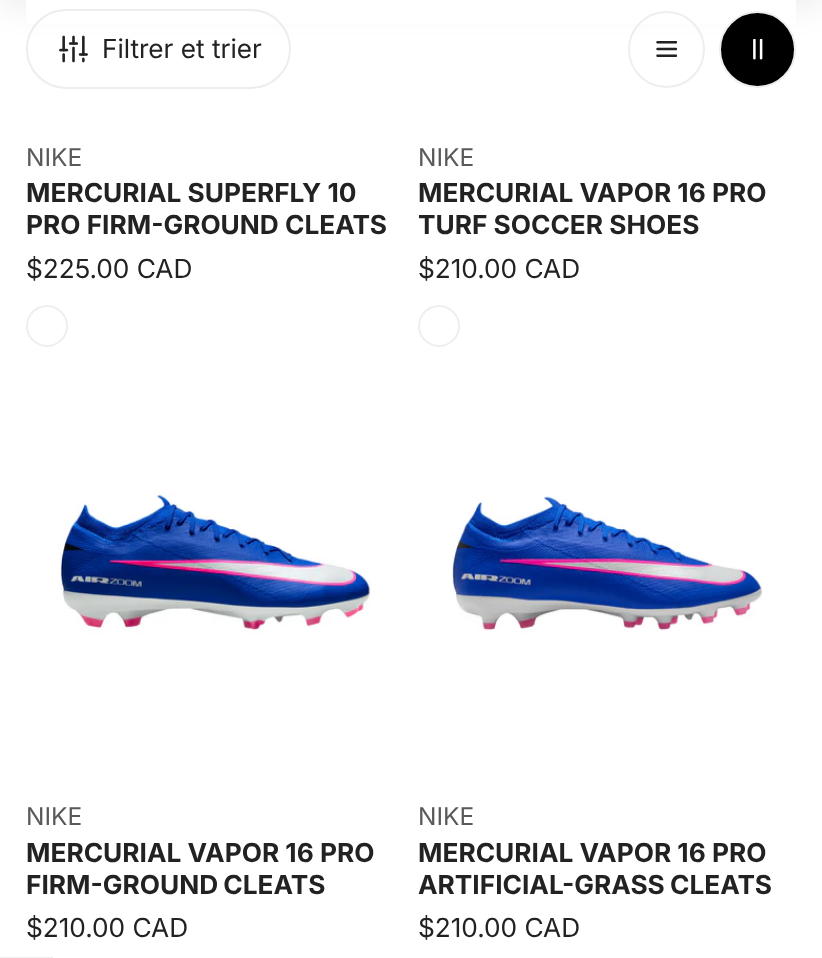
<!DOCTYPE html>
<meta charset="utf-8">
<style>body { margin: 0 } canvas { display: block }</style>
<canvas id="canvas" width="822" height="958"></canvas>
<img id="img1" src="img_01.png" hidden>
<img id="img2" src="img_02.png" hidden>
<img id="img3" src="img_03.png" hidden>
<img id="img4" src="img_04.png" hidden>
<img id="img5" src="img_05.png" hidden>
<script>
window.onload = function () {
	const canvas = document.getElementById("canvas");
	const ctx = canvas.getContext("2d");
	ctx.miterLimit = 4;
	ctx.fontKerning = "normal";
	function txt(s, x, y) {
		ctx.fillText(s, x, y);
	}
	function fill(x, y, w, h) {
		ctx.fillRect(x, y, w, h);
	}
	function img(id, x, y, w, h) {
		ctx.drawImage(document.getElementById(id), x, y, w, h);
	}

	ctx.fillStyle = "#FFFFFF";
	fill(0, 0, 822, 958);
	ctx.fillStyle = "rgba(0, 0, 0, 0.07)";
	ctx.filter = "blur(16px)";
	ctx.beginPath();
	ctx.rect(0, -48, 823, 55);
	ctx.fill();
	ctx.filter = "none";
	ctx.fillStyle = "#FFFFFF";
	fill(26, 0, 770, 24);
	ctx.beginPath();
	ctx.roundRect(27, 10, 263, 78, 39);
	ctx.strokeStyle = "#EDEDED";
	ctx.lineWidth = 2;
	ctx.stroke();
	img("img1", 59, 35, 29, 28);
	ctx.beginPath();
	ctx.arc(666.5, 49.5, 37.5, 0, Math.PI * 2);
	ctx.strokeStyle = "#EEEEEE";
	ctx.stroke();
	img("img2", 656, 41, 21, 16);
	ctx.fillStyle = "#000000";
	ctx.beginPath();
	ctx.arc(757.5, 49.5, 37.5, 0, Math.PI * 2);
	ctx.fill();
	ctx.stroke();
	img("img3", 753, 39, 10, 21);
	ctx.beginPath();
	ctx.arc(47, 326, 20, 0, Math.PI * 2);
	ctx.stroke();
	ctx.beginPath();
	ctx.arc(439, 326, 20, 0, Math.PI * 2);
	ctx.stroke();
	img("img4", 60, 491, 311, 143);
	img("img5", 452, 496, 311, 138);
	ctx.fillStyle = "#EEEEEE";
	fill(0, 957, 53, 1);
	ctx.font = "26.25px 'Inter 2'";
	ctx.fillStyle = "#222222";
	txt("Filtrer et trier", 102, 58);
	ctx.font = "24.5px Inter";
	ctx.fillStyle = "#595959";
	txt("NIKE", 26, 166);
	ctx.font = "bold 26.25px Inter";
	ctx.fillStyle = "#222222";
	txt("MERCURIAL SUPERFLY 10", 26, 202);
	txt("PRO FIRM-GROUND CLEATS", 26, 234);
	ctx.font = "26.25px 'Inter 2'";
	txt("$225.00 CAD", 26, 278);
	ctx.font = "24.5px Inter";
	ctx.fillStyle = "#595959";
	txt("NIKE", 418, 166);
	ctx.font = "bold 26.25px Inter";
	ctx.fillStyle = "#222222";
	txt("MERCURIAL VAPOR 16 PRO", 418, 202);
	txt("TURF SOCCER SHOES", 418, 234);
	ctx.font = "26.25px 'Inter 2'";
	txt("$210.00 CAD", 418, 278);
	ctx.font = "24.5px Inter";
	ctx.fillStyle = "#595959";
	txt("NIKE", 26, 825);
	ctx.font = "bold 26.25px Inter";
	ctx.fillStyle = "#222222";
	txt("MERCURIAL VAPOR 16 PRO", 26, 862);
	ctx.wordSpacing = "-1px";
	txt("FIRM-GROUND CLEATS", 26, 894);
	ctx.wordSpacing = "0px";
	ctx.font = "26.25px 'Inter 2'";
	txt("$210.00 CAD", 26, 937);
	ctx.font = "24.5px Inter";
	ctx.fillStyle = "#595959";
	txt("NIKE", 418, 825);
	ctx.font = "bold 26.25px Inter";
	ctx.fillStyle = "#222222";
	txt("MERCURIAL VAPOR 16 PRO", 418, 862);
	ctx.wordSpacing = "-1px";
	txt("ARTIFICIAL-GRASS CLEATS", 418, 894);
	ctx.wordSpacing = "0px";
	ctx.font = "26.25px 'Inter 2'";
	txt("$210.00 CAD", 418, 937);
};
</script>
